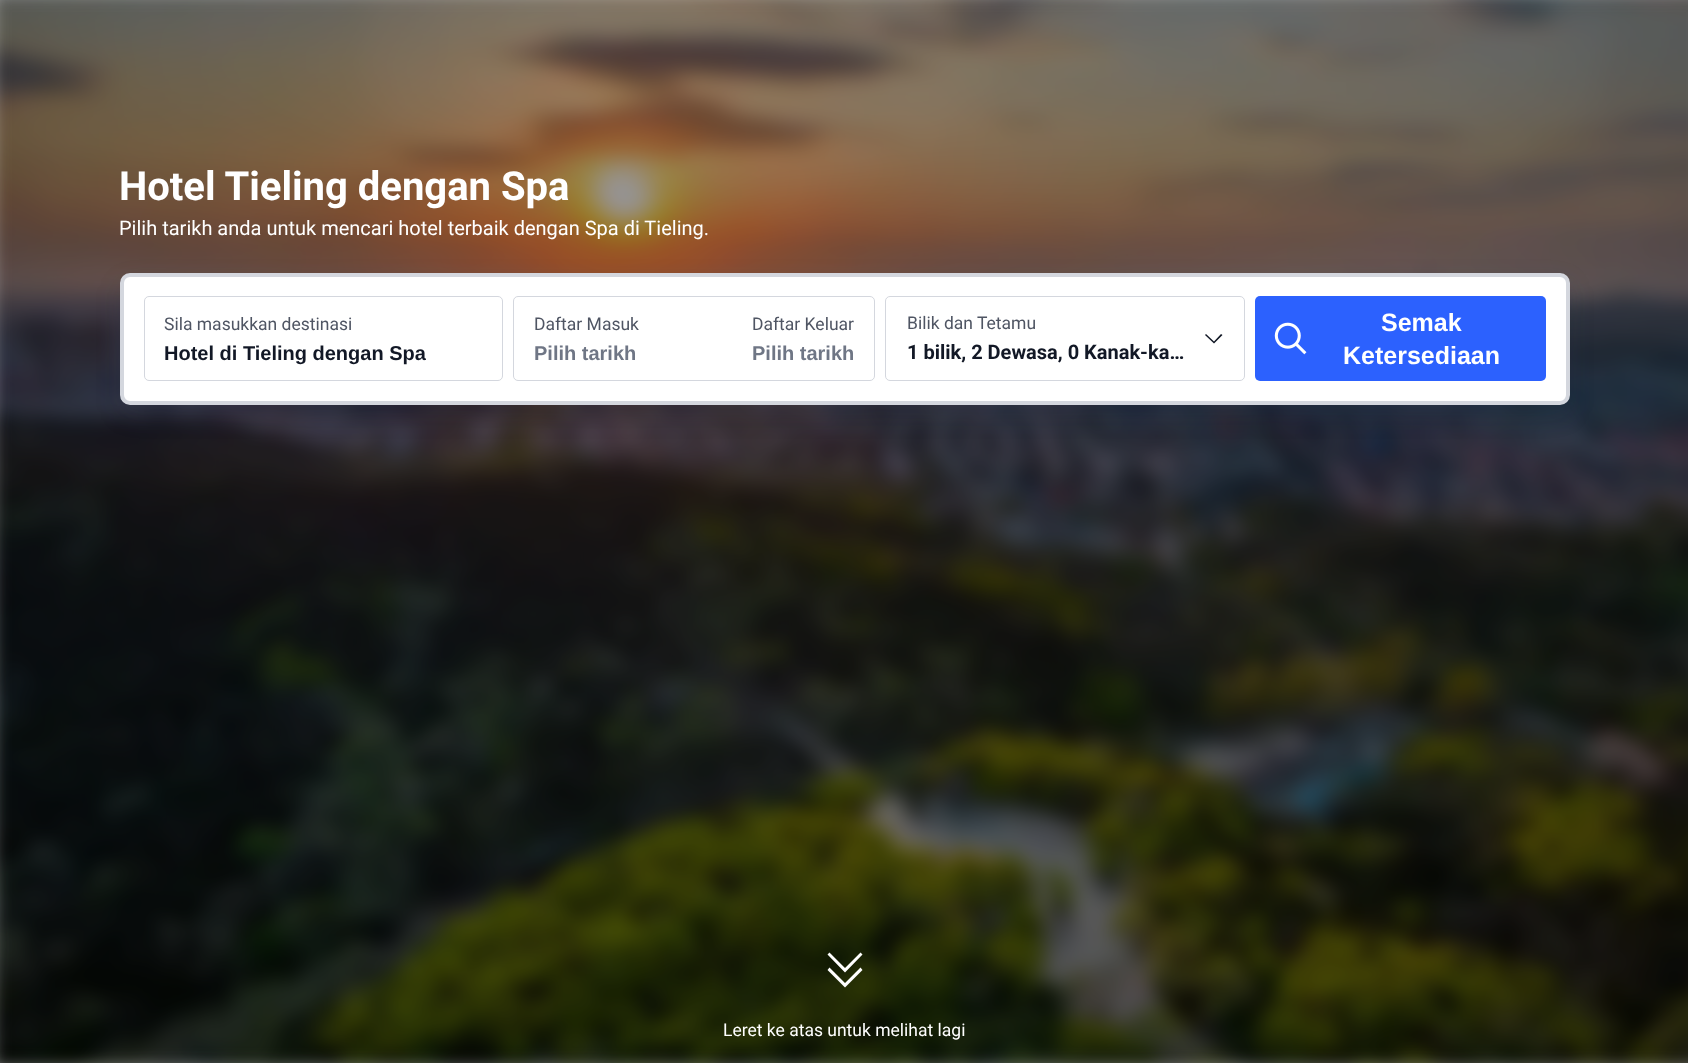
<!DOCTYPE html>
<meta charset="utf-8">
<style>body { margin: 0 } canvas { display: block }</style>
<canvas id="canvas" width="1688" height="1063"></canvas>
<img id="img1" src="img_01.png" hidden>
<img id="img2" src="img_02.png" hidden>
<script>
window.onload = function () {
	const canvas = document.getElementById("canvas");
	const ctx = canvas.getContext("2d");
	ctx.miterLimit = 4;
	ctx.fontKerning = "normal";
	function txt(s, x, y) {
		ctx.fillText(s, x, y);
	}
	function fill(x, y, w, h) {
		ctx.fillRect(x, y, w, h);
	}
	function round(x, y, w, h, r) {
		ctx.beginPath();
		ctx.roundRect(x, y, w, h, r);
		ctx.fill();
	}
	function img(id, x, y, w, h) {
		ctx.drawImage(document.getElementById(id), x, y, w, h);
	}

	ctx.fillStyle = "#FFFFFF";
	fill(0, 0, 1688, 1063);
	img("img1", 0, 0, 1688, 1063);
	ctx.fillStyle = "rgba(15, 41, 77, 0.12)";
	ctx.filter = "blur(12.5px)";
	ctx.beginPath();
	ctx.roundRect(120, 283, 1450, 132, 10);
	ctx.fill();
	ctx.filter = "none";
	ctx.fillStyle = "#FFFFFF";
	ctx.beginPath();
	ctx.roundRect(122, 275, 1446, 128, 8);
	ctx.fill();
	ctx.strokeStyle = "#D4D7DE";
	ctx.lineWidth = 4;
	ctx.stroke();
	ctx.beginPath();
	ctx.roundRect(144.5, 296.5, 358, 84, 4.5);
	ctx.lineWidth = 1;
	ctx.stroke();
	ctx.beginPath();
	ctx.roundRect(513.5, 296.5, 361, 84, 4.5);
	ctx.stroke();
	ctx.beginPath();
	ctx.roundRect(885.5, 296.5, 359, 84, 4.5);
	ctx.stroke();
	ctx.fillStyle = "#121826";
	ctx.beginPath();
	ctx.moveTo(1214, 341.5);
	ctx.lineTo(1221, 334);
	ctx.lineTo(1222.5, 335);
	ctx.lineTo(1214, 343.5);
	ctx.lineTo(1205, 335);
	ctx.lineTo(1206, 334);
	ctx.closePath();
	ctx.fill();
	ctx.fillStyle = "#2C61FE";
	round(1255, 296, 291, 85, 5);
	img("img2", 1274, 322, 33, 33);
	ctx.fillStyle = "#FFFFFF";
	ctx.beginPath();
	ctx.moveTo(827.5, 954.5);
	ctx.lineTo(829.5, 952.5);
	ctx.lineTo(845, 968);
	ctx.lineTo(860.5, 952.5);
	ctx.lineTo(862.5, 954.5);
	ctx.lineTo(845, 972.5);
	ctx.closePath();
	ctx.moveTo(827.5, 970);
	ctx.lineTo(829.5, 967.5);
	ctx.lineTo(845, 983);
	ctx.lineTo(860.5, 967.5);
	ctx.lineTo(862.5, 970);
	ctx.lineTo(845, 987.5);
	ctx.closePath();
	ctx.fill();
	ctx.font = "bold 40px Roboto";
	txt("Hotel Tieling dengan Spa", 119, 200);
	ctx.font = "20px Roboto";
	txt("Pilih tarikh anda untuk mencari hotel terbaik dengan Spa di Tieling.", 119, 235);
	ctx.font = "17.5px Roboto";
	ctx.fillStyle = "#4F5563";
	txt("Sila masukkan destinasi", 164, 330);
	ctx.font = "bold 20px Liberation Sans";
	ctx.fillStyle = "#121826";
	txt("Hotel di Tieling dengan Spa", 164, 360);
	ctx.font = "17.5px Roboto";
	ctx.fillStyle = "#4F5563";
	txt("Daftar Masuk", 534, 330);
	ctx.font = "bold 20px Liberation Sans";
	ctx.fillStyle = "#6F7685";
	txt("Pilih tarikh", 534, 360);
	ctx.font = "17.5px Roboto";
	ctx.fillStyle = "#4F5563";
	txt("Daftar Keluar", 752, 330);
	ctx.font = "bold 20px Liberation Sans";
	ctx.fillStyle = "#6F7685";
	txt("Pilih tarikh", 752, 360);
	ctx.font = "17.5px Roboto";
	ctx.fillStyle = "#4F5563";
	txt("Bilik dan Tetamu", 907, 329);
	ctx.font = "bold 20px Roboto";
	ctx.fillStyle = "#121826";
	txt("1 bilik, 2 Dewasa, 0 Kanak-ka…", 907, 359);
	ctx.font = "bold 25px Liberation Sans";
	ctx.fillStyle = "#FFFFFF";
	txt("Semak", 1381, 331);
	txt("Ketersediaan", 1343, 364);
	ctx.font = "17.5px Roboto";
	txt("Leret ke atas untuk melihat lagi", 723, 1036);
};
</script>
